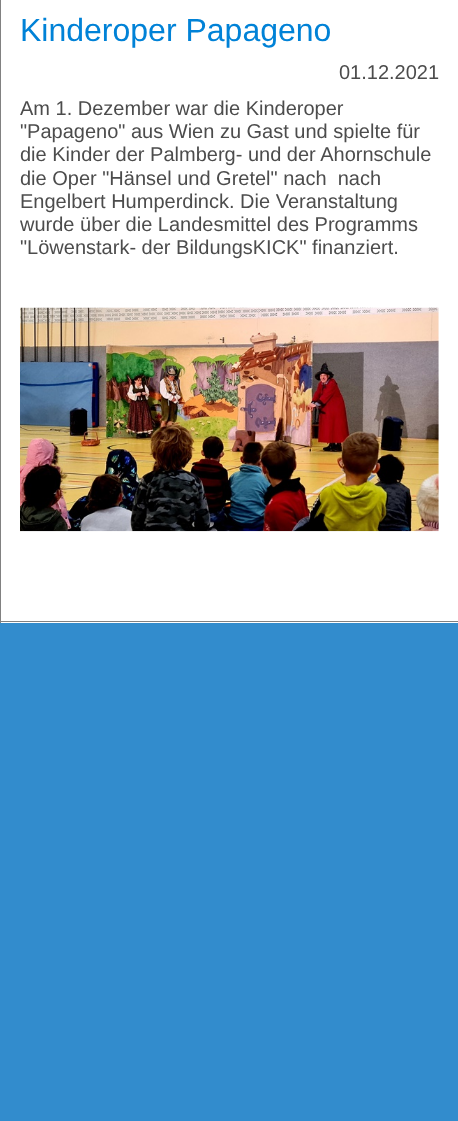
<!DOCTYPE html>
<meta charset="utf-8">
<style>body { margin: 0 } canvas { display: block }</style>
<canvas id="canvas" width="458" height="1121"></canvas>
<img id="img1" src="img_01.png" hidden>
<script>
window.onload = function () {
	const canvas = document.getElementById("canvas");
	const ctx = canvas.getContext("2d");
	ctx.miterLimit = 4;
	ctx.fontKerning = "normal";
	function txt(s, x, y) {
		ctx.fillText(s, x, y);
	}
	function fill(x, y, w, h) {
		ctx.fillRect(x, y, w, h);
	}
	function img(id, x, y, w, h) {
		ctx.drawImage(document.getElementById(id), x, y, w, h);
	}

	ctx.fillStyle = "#328CCD";
	fill(0, 0, 458, 1121);
	ctx.fillStyle = "#FFFFFF";
	fill(1, 0, 457, 623);
	ctx.fillStyle = "#818181";
	fill(0, 621, 458, 1);
	fill(0, 0, 1, 623);
	img("img1", 20, 307, 419, 225);
	ctx.font = "32px Liberation Sans";
	ctx.fillStyle = "#0082D7";
	txt("Kinderoper Papageno", 20, 41);
	ctx.font = "20px Liberation Sans";
	ctx.fillStyle = "#4C4C4C";
	txt("01.12.2021", 339, 79);
	txt("Am 1. Dezember war die Kinderoper", 20, 115);
	txt("\"Papageno\" aus Wien zu Gast und spielte für", 20, 138);
	txt("die Kinder der Palmberg- und der Ahornschule", 20, 161);
	txt("die Oper \"Hänsel und Gretel\" nach  nach", 20, 185);
	txt("Engelbert Humperdinck. Die Veranstaltung", 20, 208);
	txt("wurde über die Landesmittel des Programms", 20, 231);
	txt("\"Löwenstark- der BildungsKICK\" finanziert.", 20, 254);
};
</script>
